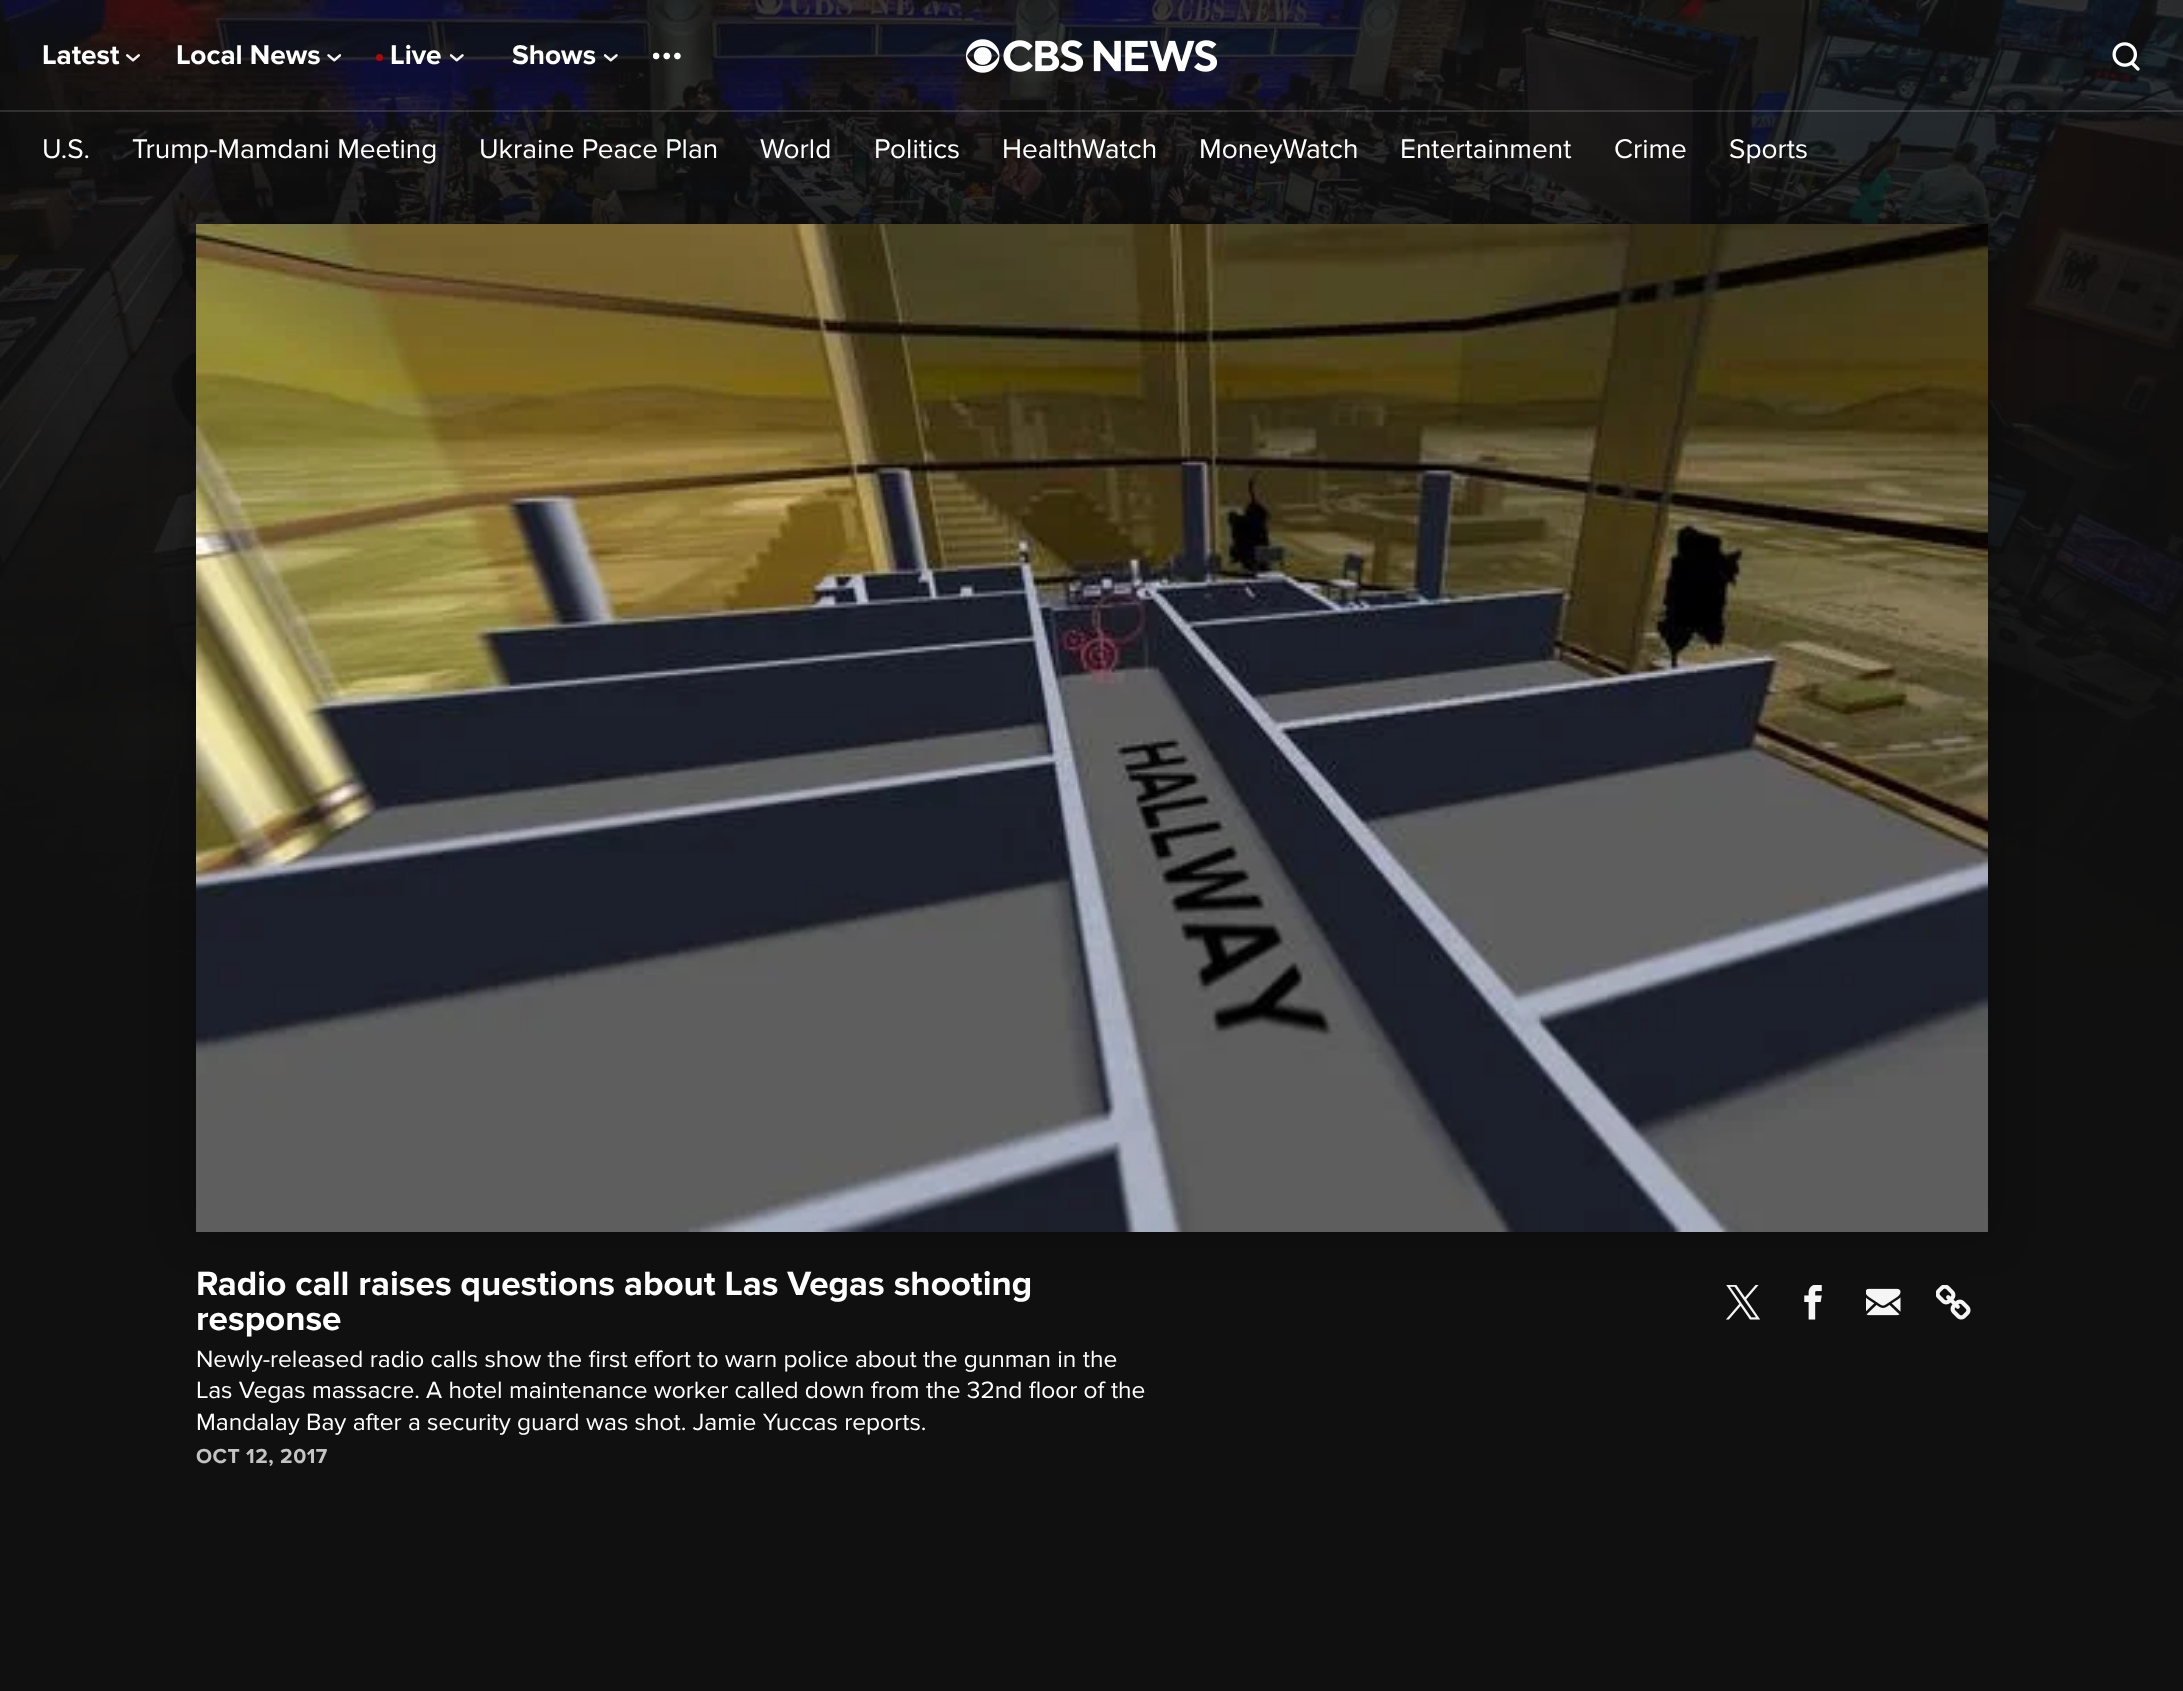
<!DOCTYPE html>
<meta charset="utf-8">
<style>body { margin: 0 } canvas { display: block }</style>
<canvas id="canvas" width="2183" height="1691"></canvas>
<img id="img1" src="img_08.png" hidden>
<img id="img2" src="img_01.png" hidden>
<img id="img3" src="img_02.png" hidden>
<img id="img4" src="img_03.png" hidden>
<img id="img5" src="img_04.png" hidden>
<img id="img6" src="img_05.png" hidden>
<img id="img7" src="img_06.png" hidden>
<img id="img8" src="img_07.png" hidden>
<img id="img9" src="img_09.png" hidden>
<img id="img10" src="img_10.png" hidden>
<img id="img11" src="img_11.png" hidden>
<img id="img12" src="img_12.png" hidden>
<img id="img13" src="img_13.png" hidden>
<script>
window.onload = function () {
	const canvas = document.getElementById("canvas");
	const ctx = canvas.getContext("2d");
	ctx.miterLimit = 4;
	ctx.fontKerning = "normal";
	function txt(s, x, y) {
		ctx.fillText(s, x, y);
	}
	function fill(x, y, w, h) {
		ctx.fillRect(x, y, w, h);
	}
	function img(id, x, y, w, h) {
		ctx.drawImage(document.getElementById(id), x, y, w, h);
	}

	ctx.fillStyle = "#101010";
	fill(0, 0, 2183, 1691);
	img("img1", 0, 0, 2183, 968);
	ctx.fillStyle = "rgba(242, 242, 242, 0.15)";
	fill(0, 110, 2183, 2);
	img("img2", 126, 54, 14, 8);
	img("img3", 327, 54, 14, 8);
	ctx.fillStyle = "#B60505";
	ctx.beginPath();
	ctx.arc(379.5, 57.5, 3.5, 0, Math.PI * 2);
	ctx.fill();
	img("img4", 450, 54, 14, 8);
	img("img5", 604, 54, 14, 8);
	img("img6", 653, 52, 28, 8);
	img("img7", 966, 39, 252, 34);
	img("img8", 2112, 42, 28, 29);
	ctx.fillStyle = "rgba(0, 0, 0, 0.3)";
	ctx.filter = "blur(22px)";
	ctx.beginPath();
	ctx.rect(196, 224, 1792, 1008);
	ctx.fill();
	ctx.filter = "none";
	img("img9", 196, 224, 1792, 1008);
	img("img10", 1726, 1285, 34, 35);
	img("img11", 1804, 1285, 18, 35);
	img("img12", 1866, 1288, 35, 28);
	img("img13", 1936, 1285, 35, 35);
	ctx.font = "bold 28px Proxima Nova";
	ctx.fillStyle = "#FFFFFF";
	txt("Latest", 42, 64);
	txt("Local News", 176, 64);
	txt("Live", 390, 64);
	txt("Shows", 512, 64);
	ctx.font = "28px Proxima Nova";
	txt("U.S.", 42, 158);
	txt("Trump-Mamdani Meeting", 132, 158);
	txt("Ukraine Peace Plan", 479, 158);
	txt("World", 760, 158);
	txt("Politics", 874, 158);
	txt("HealthWatch", 1002, 158);
	txt("MoneyWatch", 1199, 158);
	txt("Entertainment", 1400, 158);
	txt("Crime", 1614, 158);
	txt("Sports", 1729, 158);
	ctx.font = "bold 35px Proxima Nova";
	txt("Radio call raises questions about Las Vegas shooting", 196, 1295);
	txt("response", 196, 1330);
	ctx.font = "24.5px Proxima Nova";
	txt("Newly-released radio calls show the first effort to warn police about the gunman in the", 196, 1367);
	txt("Las Vegas massacre. A hotel maintenance worker called down from the 32nd floor of the", 196, 1398);
	txt("Mandalay Bay after a security guard was shot. Jamie Yuccas reports.", 196, 1430);
	ctx.letterSpacing = "0.5px";
	ctx.font = "bold 21px Proxima Nova";
	ctx.fillStyle = "#C3C3C3";
	txt("OCT 12, 2017", 196, 1463);
};
</script>
